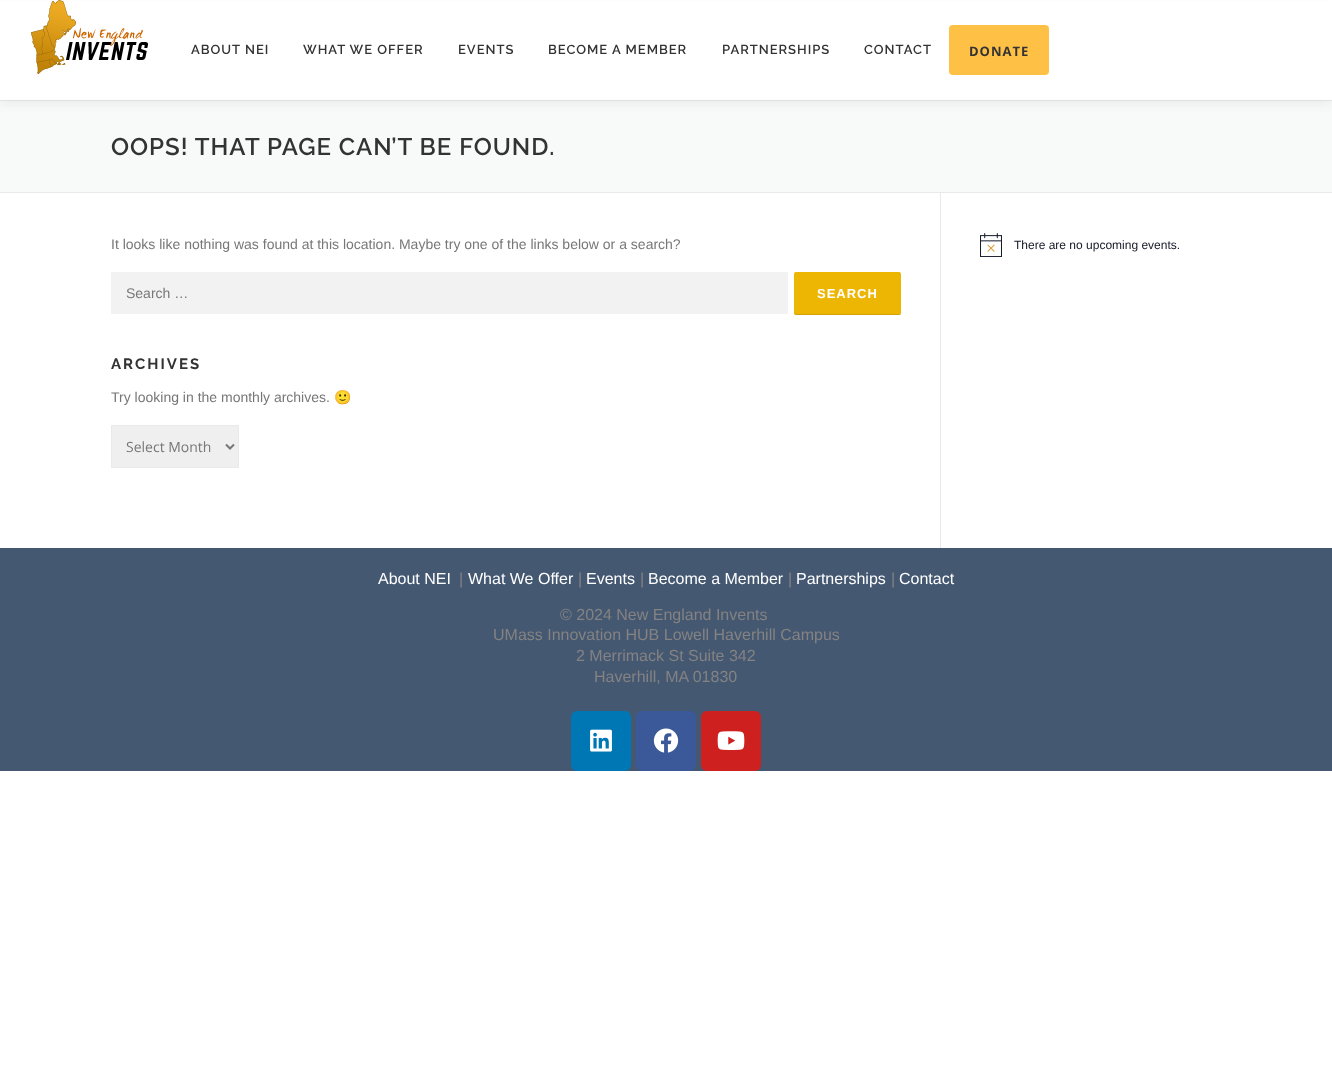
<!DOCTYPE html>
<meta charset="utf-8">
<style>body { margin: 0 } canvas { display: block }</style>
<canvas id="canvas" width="1332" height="1080"></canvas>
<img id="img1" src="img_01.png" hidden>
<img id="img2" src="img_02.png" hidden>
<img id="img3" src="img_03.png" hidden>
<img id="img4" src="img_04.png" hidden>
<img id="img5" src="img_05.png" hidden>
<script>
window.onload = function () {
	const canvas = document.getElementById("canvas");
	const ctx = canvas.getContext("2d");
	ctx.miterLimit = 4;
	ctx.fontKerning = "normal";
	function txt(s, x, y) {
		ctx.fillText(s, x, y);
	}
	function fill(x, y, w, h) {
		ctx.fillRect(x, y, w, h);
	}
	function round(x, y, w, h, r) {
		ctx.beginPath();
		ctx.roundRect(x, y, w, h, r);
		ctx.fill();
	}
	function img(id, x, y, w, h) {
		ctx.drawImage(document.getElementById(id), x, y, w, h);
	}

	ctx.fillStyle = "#FFFFFF";
	fill(0, 0, 1332, 1080);
	ctx.fillStyle = "#F8F9F9";
	fill(0, 101, 1332, 91);
	ctx.fillStyle = "#E9E9E9";
	fill(0, 100, 1332, 1);
	ctx.fillStyle = "rgba(50, 50, 50, 0.06)";
	ctx.filter = "blur(5px)";
	ctx.beginPath();
	ctx.rect(0, 5, 1332, 100);
	ctx.fill();
	ctx.filter = "none";
	ctx.fillStyle = "#FFFFFF";
	fill(0, 1, 1332, 99);
	img("img1", 31, 0, 117, 74);
	ctx.fillStyle = "#FFC145";
	round(949, 25, 100, 50, 4);
	ctx.fillStyle = "#E9E9E9";
	fill(0, 192, 1332, 1);
	fill(940, 193, 1, 355);
	ctx.fillStyle = "#F2F2F2";
	fill(111, 272, 677, 42);
	ctx.fillStyle = "#EDB602";
	round(794, 272, 107, 43, 2);
	ctx.fillStyle = "rgba(0, 0, 0, 0.1)";
	ctx.beginPath();
	ctx.moveTo(794, 312);
	ctx.bezierCurveTo(794, 313, 794, 315, 796, 315);
	ctx.lineTo(899, 315);
	ctx.bezierCurveTo(901, 315, 901, 313, 901, 312);
	ctx.bezierCurveTo(901, 313, 900, 314, 899, 314);
	ctx.lineTo(796, 314);
	ctx.bezierCurveTo(795, 314, 794, 313, 794, 312);
	ctx.closePath();
	ctx.fill();
	ctx.fillStyle = "#EFEFEF";
	ctx.beginPath();
	ctx.rect(111.5, 425.5, 127, 42);
	ctx.fill();
	ctx.strokeStyle = "#E9E9E9";
	ctx.stroke();
	ctx.beginPath();
	ctx.moveTo(226, 444.5);
	ctx.lineTo(230, 448.5);
	ctx.lineTo(234, 444.5);
	ctx.strokeStyle = "#777777";
	ctx.lineWidth = 2;
	ctx.stroke();
	img("img2", 980, 233, 22, 24);
	ctx.fillStyle = "#445872";
	fill(0, 548, 1332, 223);
	ctx.fillStyle = "#0077B5";
	round(571, 711, 60, 60, 6);
	img("img3", 590, 729, 22, 23);
	ctx.fillStyle = "#3B5998";
	round(636, 711, 60, 60, 6);
	img("img4", 653, 728, 26, 25);
	ctx.fillStyle = "#CD201F";
	round(701, 711, 60, 60, 6);
	img("img5", 717, 731, 28, 19);
	ctx.letterSpacing = "1px";
	ctx.font = "600 13px Raleway";
	ctx.fillStyle = "#333333";
	txt("ABOUT NEI", 191, 54);
	txt("WHAT WE OFFER", 303, 54);
	txt("EVENTS", 458, 54);
	txt("BECOME A MEMBER", 548, 54);
	txt("PARTNERSHIPS", 722, 54);
	txt("CONTACT", 864, 54);
	ctx.font = "bold 13px Open Sans";
	txt("DONATE", 969, 56);
	ctx.font = "600 24px Raleway";
	txt("OOPS! THAT PAGE CAN’T BE FOUND.", 111, 155);
	ctx.letterSpacing = "0px";
	ctx.font = "14px Liberation Sans";
	ctx.fillStyle = "#777777";
	txt("It looks like nothing was found at this location. Maybe try one of the links below or a search?", 111, 249);
	txt("Search …", 126, 298);
	ctx.letterSpacing = "1px";
	ctx.font = "bold 13px Liberation Sans";
	ctx.fillStyle = "#FFFFFF";
	txt("SEARCH", 817, 298);
	ctx.letterSpacing = "2px";
	ctx.font = "bold 15px Raleway";
	ctx.fillStyle = "#333333";
	txt("ARCHIVES", 111, 369);
	ctx.letterSpacing = "0px";
	ctx.font = "14px Liberation Sans";
	ctx.fillStyle = "#777777";
	txt("Try looking in the monthly archives.", 111, 402);
	ctx.font = "14px Noto Color Emoji";
	txt("🙂", 334, 402);
	ctx.font = "14px Open Sans";
	txt("Select Month", 126, 452);
	ctx.font = "12px Liberation Sans";
	ctx.fillStyle = "#141827";
	txt("There are no upcoming events.", 1014, 249);
	ctx.font = "16px Liberation Sans";
	ctx.fillStyle = "#FFFFFF";
	txt("About NEI", 378, 584);
	ctx.fillStyle = "#848282";
	txt("|", 459, 584);
	ctx.fillStyle = "#FFFFFF";
	txt("What We Offer", 468, 584);
	ctx.fillStyle = "#848282";
	txt("|", 578, 584);
	ctx.fillStyle = "#FFFFFF";
	txt("Events", 586, 584);
	ctx.fillStyle = "#848282";
	txt("|", 640, 584);
	ctx.fillStyle = "#FFFFFF";
	txt("Become a Member", 648, 584);
	ctx.fillStyle = "#848282";
	txt("|", 788, 584);
	ctx.fillStyle = "#FFFFFF";
	txt("Partnerships", 796, 584);
	ctx.fillStyle = "#848282";
	txt("|", 891, 584);
	ctx.fillStyle = "#FFFFFF";
	txt("Contact", 899, 584);
	ctx.fillStyle = "#848282";
	txt("© 2024 New England Invents", 560, 620);
	txt("UMass Innovation HUB Lowell Haverhill Campus", 493, 640);
	txt("2 Merrimack St Suite 342", 576, 661);
	txt("Haverhill, MA 01830", 594, 682);
};
</script>
